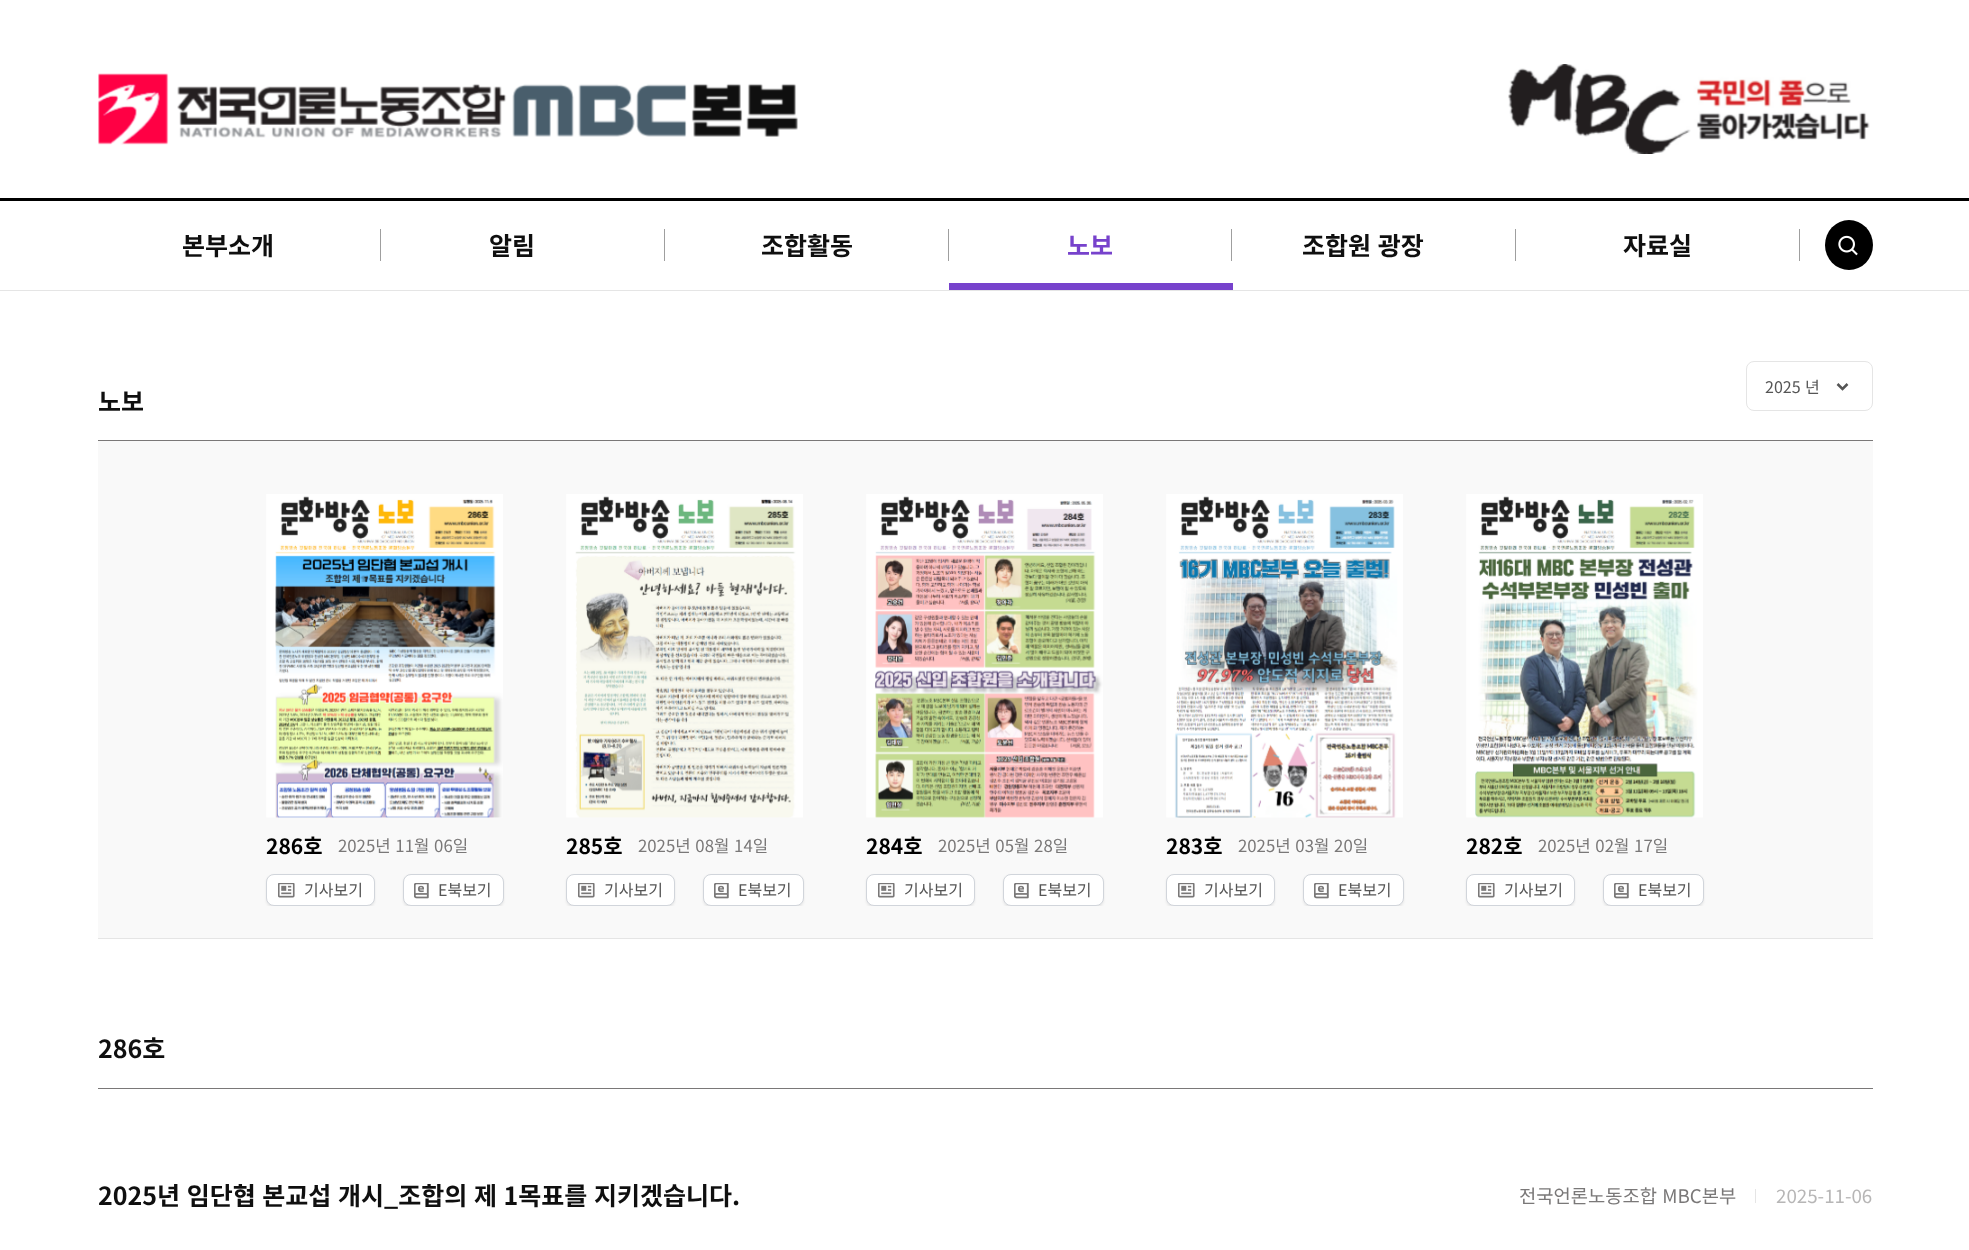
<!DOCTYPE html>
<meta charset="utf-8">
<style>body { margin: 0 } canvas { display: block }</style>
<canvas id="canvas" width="1969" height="1250"></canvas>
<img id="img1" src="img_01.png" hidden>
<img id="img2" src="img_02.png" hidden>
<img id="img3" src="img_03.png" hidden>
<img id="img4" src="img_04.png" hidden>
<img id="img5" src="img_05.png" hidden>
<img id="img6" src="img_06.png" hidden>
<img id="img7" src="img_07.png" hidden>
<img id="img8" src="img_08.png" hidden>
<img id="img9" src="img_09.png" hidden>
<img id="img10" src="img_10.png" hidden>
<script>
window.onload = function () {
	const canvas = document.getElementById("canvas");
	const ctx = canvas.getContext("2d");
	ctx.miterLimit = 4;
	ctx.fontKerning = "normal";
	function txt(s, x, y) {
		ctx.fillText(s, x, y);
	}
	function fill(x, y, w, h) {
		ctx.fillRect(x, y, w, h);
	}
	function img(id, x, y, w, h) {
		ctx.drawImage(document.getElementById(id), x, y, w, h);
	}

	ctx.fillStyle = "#FFFFFF";
	fill(0, 0, 1969, 1250);
	img("img1", 98, 73, 700, 72);
	img("img2", 1508, 64, 362, 90);
	ctx.fillStyle = "#000000";
	fill(0, 198, 1969, 3);
	ctx.fillStyle = "#E5E5E5";
	fill(0, 290, 1969, 1);
	ctx.fillStyle = "#9F9F9F";
	fill(380, 229, 1, 32);
	fill(664, 229, 1, 32);
	fill(948, 229, 1, 32);
	fill(1231, 229, 1, 32);
	ctx.fillStyle = "#7742CC";
	fill(949, 283, 284, 7);
	ctx.fillStyle = "#9F9F9F";
	fill(1515, 229, 1, 32);
	fill(1799, 229, 1, 32);
	ctx.fillStyle = "#000000";
	ctx.beginPath();
	ctx.ellipse(1849, 245, 24, 25, 0, 0, Math.PI * 2);
	ctx.fill();
	img("img3", 1838, 235, 20, 21);
	ctx.fillStyle = "#7A7878";
	fill(98, 440, 1775, 1);
	ctx.beginPath();
	ctx.roundRect(1746.5, 361.5, 126, 49, 7.5);
	ctx.strokeStyle = "#E5E5E5";
	ctx.stroke();
	ctx.beginPath();
	ctx.moveTo(1837.5, 384);
	ctx.lineTo(1842.5, 389);
	ctx.lineTo(1847.5, 384);
	ctx.strokeStyle = "#555555";
	ctx.lineWidth = 2.5;
	ctx.stroke();
	ctx.fillStyle = "#F9F9F9";
	fill(98, 441, 1775, 497);
	ctx.fillStyle = "#E5E5E5";
	fill(98, 938, 1775, 1);
	img("img4", 266, 494, 237, 324);
	ctx.save();
	ctx.beginPath();
	ctx.rect(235, 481, 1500, 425);
	ctx.clip();
	ctx.fillStyle = "rgba(0, 0, 0, 0.07)";
	ctx.filter = "blur(1px)";
	ctx.beginPath();
	ctx.roundRect(266, 875, 109, 33, 8);
	ctx.fill();
	ctx.filter = "none";
	ctx.restore();
	ctx.fillStyle = "#FFFFFF";
	ctx.beginPath();
	ctx.roundRect(266.5, 874.5, 108, 31, 7.5);
	ctx.fill();
	ctx.strokeStyle = "#D1D5DB";
	ctx.lineWidth = 1;
	ctx.stroke();
	img("img5", 278, 883, 17, 15);
	ctx.save();
	ctx.beginPath();
	ctx.rect(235, 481, 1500, 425);
	ctx.clip();
	ctx.fillStyle = "rgba(0, 0, 0, 0.07)";
	ctx.filter = "blur(1px)";
	ctx.beginPath();
	ctx.roundRect(403, 875, 101, 33, 8);
	ctx.fill();
	ctx.filter = "none";
	ctx.restore();
	ctx.beginPath();
	ctx.roundRect(403.5, 874.5, 100, 31, 7.5);
	ctx.fill();
	ctx.stroke();
	img("img6", 414, 883, 15, 16);
	img("img7", 566, 494, 237, 324);
	ctx.save();
	ctx.beginPath();
	ctx.rect(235, 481, 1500, 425);
	ctx.clip();
	ctx.fillStyle = "rgba(0, 0, 0, 0.07)";
	ctx.filter = "blur(1px)";
	ctx.beginPath();
	ctx.roundRect(566, 875, 109, 33, 8);
	ctx.fill();
	ctx.filter = "none";
	ctx.restore();
	ctx.beginPath();
	ctx.roundRect(566.5, 874.5, 108, 31, 7.5);
	ctx.fill();
	ctx.stroke();
	img("img5", 578, 883, 17, 15);
	ctx.save();
	ctx.beginPath();
	ctx.rect(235, 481, 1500, 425);
	ctx.clip();
	ctx.fillStyle = "rgba(0, 0, 0, 0.07)";
	ctx.filter = "blur(1px)";
	ctx.beginPath();
	ctx.roundRect(703, 875, 101, 33, 8);
	ctx.fill();
	ctx.filter = "none";
	ctx.restore();
	ctx.beginPath();
	ctx.roundRect(703.5, 874.5, 100, 31, 7.5);
	ctx.fill();
	ctx.stroke();
	img("img6", 714, 883, 15, 16);
	img("img8", 866, 494, 237, 324);
	ctx.save();
	ctx.beginPath();
	ctx.rect(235, 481, 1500, 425);
	ctx.clip();
	ctx.fillStyle = "rgba(0, 0, 0, 0.07)";
	ctx.filter = "blur(1px)";
	ctx.beginPath();
	ctx.roundRect(866, 875, 109, 33, 8);
	ctx.fill();
	ctx.filter = "none";
	ctx.restore();
	ctx.beginPath();
	ctx.roundRect(866.5, 874.5, 108, 31, 7.5);
	ctx.fill();
	ctx.stroke();
	img("img5", 878, 883, 17, 15);
	ctx.save();
	ctx.beginPath();
	ctx.rect(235, 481, 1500, 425);
	ctx.clip();
	ctx.fillStyle = "rgba(0, 0, 0, 0.07)";
	ctx.filter = "blur(1px)";
	ctx.beginPath();
	ctx.roundRect(1003, 875, 101, 33, 8);
	ctx.fill();
	ctx.filter = "none";
	ctx.restore();
	ctx.beginPath();
	ctx.roundRect(1003.5, 874.5, 100, 31, 7.5);
	ctx.fill();
	ctx.stroke();
	img("img6", 1014, 883, 15, 16);
	img("img9", 1166, 494, 237, 324);
	ctx.save();
	ctx.beginPath();
	ctx.rect(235, 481, 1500, 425);
	ctx.clip();
	ctx.fillStyle = "rgba(0, 0, 0, 0.07)";
	ctx.filter = "blur(1px)";
	ctx.beginPath();
	ctx.roundRect(1166, 875, 109, 33, 8);
	ctx.fill();
	ctx.filter = "none";
	ctx.restore();
	ctx.beginPath();
	ctx.roundRect(1166.5, 874.5, 108, 31, 7.5);
	ctx.fill();
	ctx.stroke();
	img("img5", 1178, 883, 17, 15);
	ctx.save();
	ctx.beginPath();
	ctx.rect(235, 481, 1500, 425);
	ctx.clip();
	ctx.fillStyle = "rgba(0, 0, 0, 0.07)";
	ctx.filter = "blur(1px)";
	ctx.beginPath();
	ctx.roundRect(1303, 875, 101, 33, 8);
	ctx.fill();
	ctx.filter = "none";
	ctx.restore();
	ctx.beginPath();
	ctx.roundRect(1303.5, 874.5, 100, 31, 7.5);
	ctx.fill();
	ctx.stroke();
	img("img6", 1314, 883, 15, 16);
	img("img10", 1466, 494, 237, 324);
	ctx.save();
	ctx.beginPath();
	ctx.rect(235, 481, 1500, 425);
	ctx.clip();
	ctx.fillStyle = "rgba(0, 0, 0, 0.07)";
	ctx.filter = "blur(1px)";
	ctx.beginPath();
	ctx.roundRect(1466, 875, 109, 33, 8);
	ctx.fill();
	ctx.filter = "none";
	ctx.restore();
	ctx.beginPath();
	ctx.roundRect(1466.5, 874.5, 108, 31, 7.5);
	ctx.fill();
	ctx.stroke();
	img("img5", 1478, 883, 17, 15);
	ctx.save();
	ctx.beginPath();
	ctx.rect(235, 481, 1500, 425);
	ctx.clip();
	ctx.fillStyle = "rgba(0, 0, 0, 0.07)";
	ctx.filter = "blur(1px)";
	ctx.beginPath();
	ctx.roundRect(1603, 875, 101, 33, 8);
	ctx.fill();
	ctx.filter = "none";
	ctx.restore();
	ctx.beginPath();
	ctx.roundRect(1603.5, 874.5, 100, 31, 7.5);
	ctx.fill();
	ctx.stroke();
	img("img6", 1614, 883, 15, 16);
	ctx.fillStyle = "#7A7878";
	fill(98, 1088, 1775, 1);
	ctx.fillStyle = "#E5E5E5";
	fill(1755, 1189, 1, 14);
	ctx.font = "bold 25px Noto Sans KR";
	ctx.fillStyle = "#0F0F0F";
	txt("본부소개", 182, 255);
	txt("알림", 489, 255);
	txt("조합활동", 761, 255);
	ctx.fillStyle = "#7742CC";
	txt("노보", 1067, 255);
	ctx.wordSpacing = "1px";
	ctx.fillStyle = "#0F0F0F";
	txt("조합원 광장", 1302, 255);
	ctx.wordSpacing = "0px";
	txt("자료실", 1623, 255);
	ctx.wordSpacing = "1px";
	ctx.font = "16px Noto Sans KR";
	ctx.fillStyle = "#555555";
	txt("2025 년", 1765, 393);
	ctx.wordSpacing = "0px";
	ctx.font = "bold 25px Noto Sans KR";
	ctx.fillStyle = "#0F0F0F";
	txt("노보", 98, 411);
	ctx.font = "bold 21px Noto Sans KR";
	ctx.fillStyle = "#000000";
	txt("286호", 266, 854);
	ctx.wordSpacing = "1px";
	ctx.font = "16.75px Noto Sans KR";
	ctx.fillStyle = "#7A7878";
	txt("2025년 11월 06일", 338, 852);
	ctx.wordSpacing = "0px";
	ctx.font = "16px Noto Sans KR";
	ctx.fillStyle = "#555555";
	txt("기사보기", 304, 896);
	txt("E북보기", 438, 896);
	ctx.font = "bold 21px Noto Sans KR";
	ctx.fillStyle = "#000000";
	txt("285호", 566, 854);
	ctx.wordSpacing = "1px";
	ctx.font = "16.75px Noto Sans KR";
	ctx.fillStyle = "#7A7878";
	txt("2025년 08월 14일", 638, 852);
	ctx.wordSpacing = "0px";
	ctx.font = "16px Noto Sans KR";
	ctx.fillStyle = "#555555";
	txt("기사보기", 604, 896);
	txt("E북보기", 738, 896);
	ctx.font = "bold 21px Noto Sans KR";
	ctx.fillStyle = "#000000";
	txt("284호", 866, 854);
	ctx.wordSpacing = "1px";
	ctx.font = "16.75px Noto Sans KR";
	ctx.fillStyle = "#7A7878";
	txt("2025년 05월 28일", 938, 852);
	ctx.wordSpacing = "0px";
	ctx.font = "16px Noto Sans KR";
	ctx.fillStyle = "#555555";
	txt("기사보기", 904, 896);
	txt("E북보기", 1038, 896);
	ctx.font = "bold 21px Noto Sans KR";
	ctx.fillStyle = "#000000";
	txt("283호", 1166, 854);
	ctx.wordSpacing = "1px";
	ctx.font = "16.75px Noto Sans KR";
	ctx.fillStyle = "#7A7878";
	txt("2025년 03월 20일", 1238, 852);
	ctx.wordSpacing = "0px";
	ctx.font = "16px Noto Sans KR";
	ctx.fillStyle = "#555555";
	txt("기사보기", 1204, 896);
	txt("E북보기", 1338, 896);
	ctx.font = "bold 21px Noto Sans KR";
	ctx.fillStyle = "#000000";
	txt("282호", 1466, 854);
	ctx.wordSpacing = "1px";
	ctx.font = "16.75px Noto Sans KR";
	ctx.fillStyle = "#7A7878";
	txt("2025년 02월 17일", 1538, 852);
	ctx.wordSpacing = "0px";
	ctx.font = "16px Noto Sans KR";
	ctx.fillStyle = "#555555";
	txt("기사보기", 1504, 896);
	txt("E북보기", 1638, 896);
	ctx.font = "bold 25px Noto Sans KR";
	ctx.fillStyle = "#0F0F0F";
	txt("286호", 98, 1058);
	ctx.wordSpacing = "1px";
	txt("2025년 임단협 본교섭 개시_조합의 제 1목표를 지키겠습니다.", 98, 1205);
	ctx.font = "18.75px Noto Sans KR";
	ctx.fillStyle = "#7A7878";
	txt("전국언론노동조합 MBC본부", 1519, 1203);
	ctx.wordSpacing = "0px";
	ctx.fillStyle = "#B7B6B6";
	txt("2025-11-06", 1776, 1203);
};
</script>
